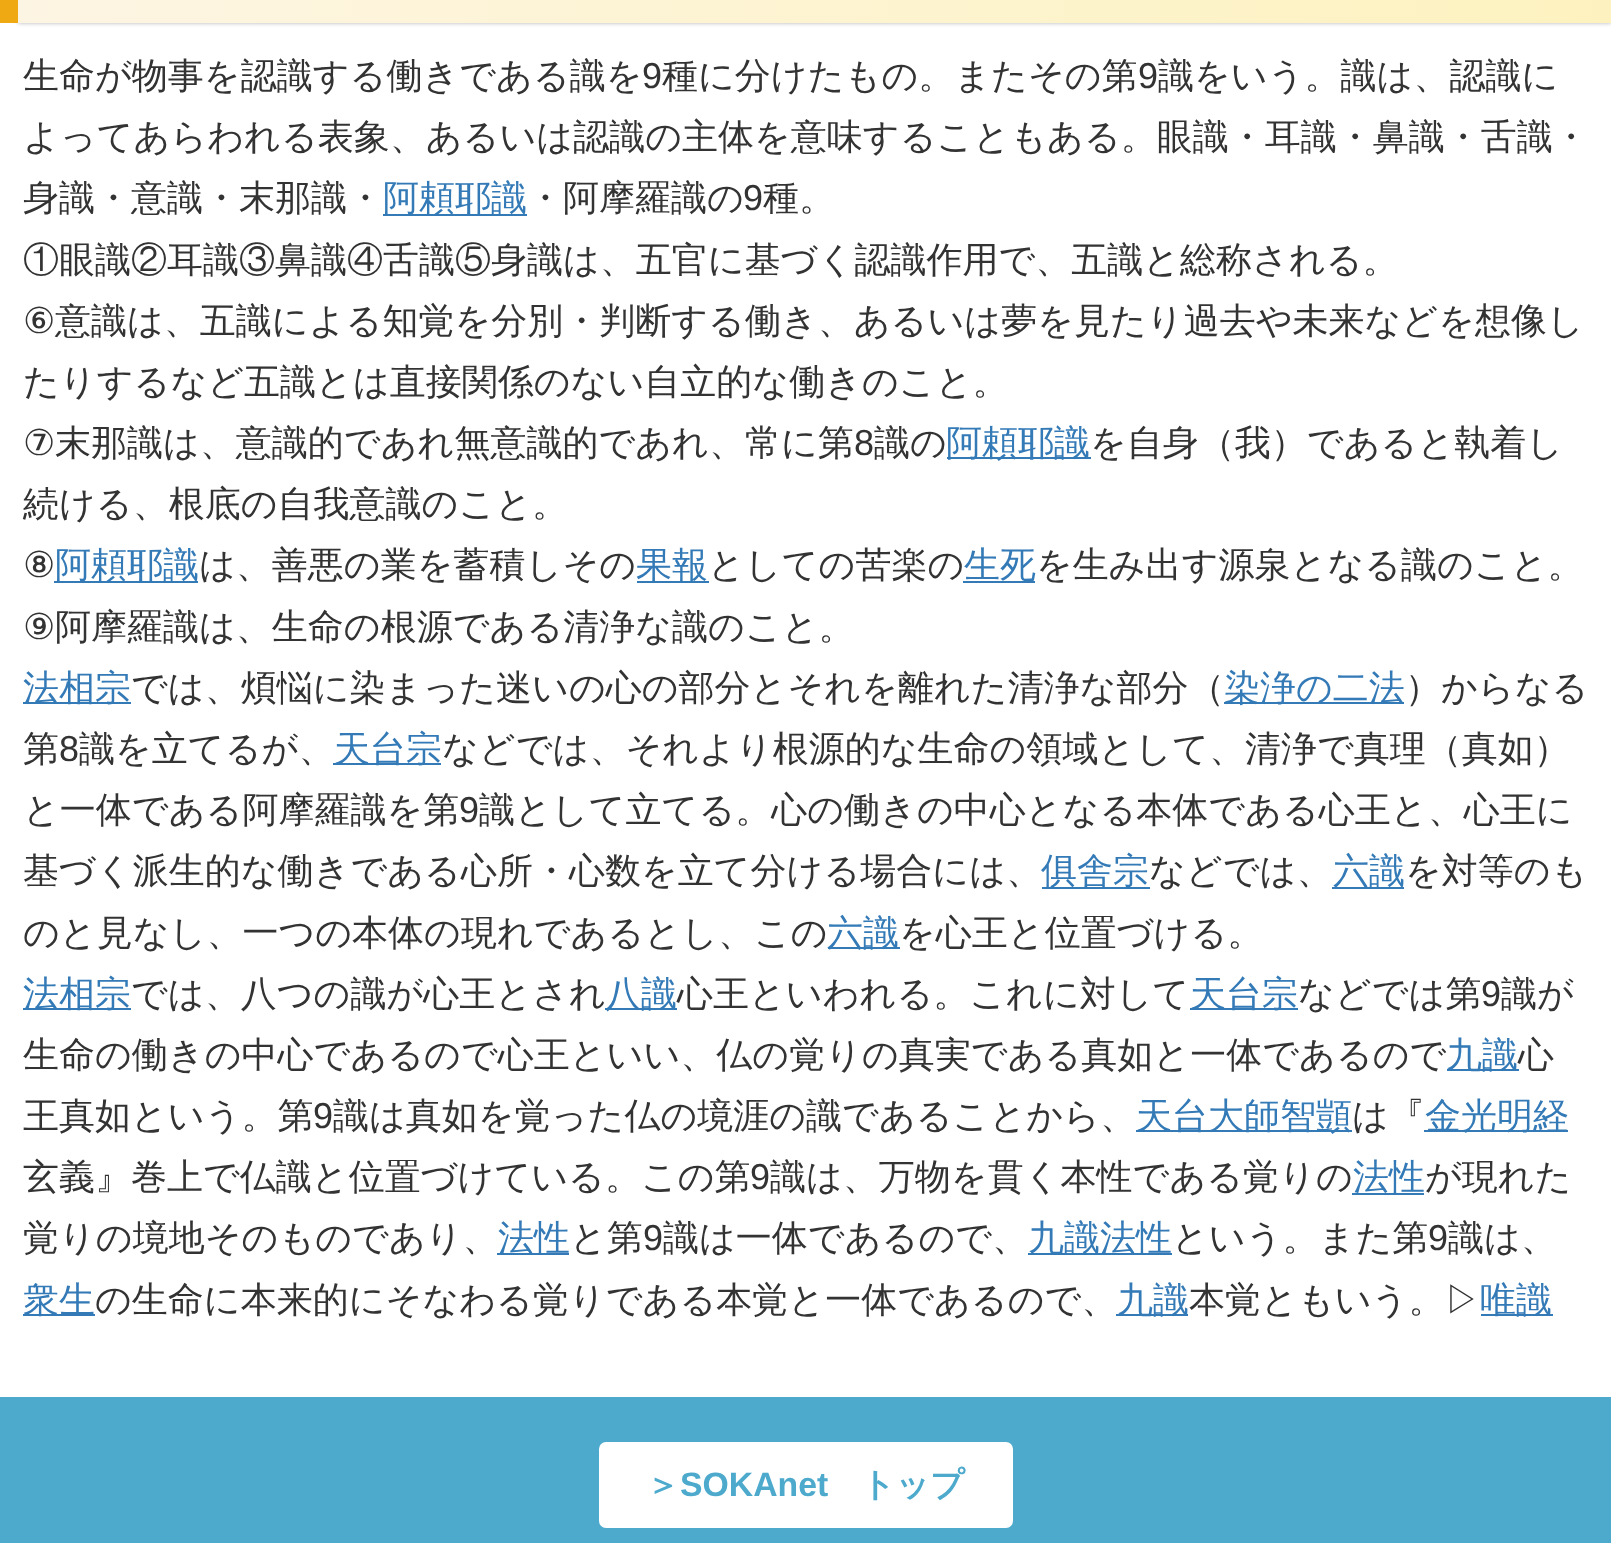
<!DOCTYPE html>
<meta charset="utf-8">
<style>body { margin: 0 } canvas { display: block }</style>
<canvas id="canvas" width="1611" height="1543"></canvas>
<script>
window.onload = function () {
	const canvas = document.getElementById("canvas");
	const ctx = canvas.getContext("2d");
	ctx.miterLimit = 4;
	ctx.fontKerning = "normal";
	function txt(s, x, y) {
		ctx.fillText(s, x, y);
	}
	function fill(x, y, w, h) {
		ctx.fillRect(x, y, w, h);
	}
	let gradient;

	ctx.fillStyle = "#FFFFFF";
	fill(0, 0, 1611, 1543);
	ctx.fillStyle = "rgba(0, 0, 0, 0.3)";
	ctx.filter = "blur(2px)";
	ctx.beginPath();
	ctx.rect(18, -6, 1593, 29);
	ctx.fill();
	ctx.filter = "none";
	gradient = ctx.createLinearGradient(18, -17, 1611, -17);
	gradient.addColorStop(0, "#FDF5E3");
	gradient.addColorStop(1, "#FDF2BF");
	ctx.fillStyle = gradient;
	fill(18, 0, 1593, 23);
	ctx.fillStyle = "#EEA913";
	fill(0, 0, 18, 23);
	ctx.fillStyle = "#337AB7";
	fill(383, 214, 144, 2);
	fill(947, 457, 144, 2);
	fill(54, 581, 144, 2);
	fill(637, 581, 72, 2);
	fill(963, 581, 72, 2);
	fill(23, 702, 108, 2);
	fill(1224, 702, 180, 2);
	fill(333, 763, 108, 2);
	fill(1042, 887, 108, 2);
	fill(1332, 887, 72, 2);
	fill(828, 947, 72, 2);
	fill(23, 1008, 108, 2);
	fill(605, 1008, 72, 2);
	fill(1190, 1008, 108, 2);
	fill(1447, 1069, 72, 2);
	fill(1136, 1130, 216, 2);
	fill(1424, 1130, 144, 2);
	fill(1352, 1193, 72, 2);
	fill(497, 1253, 72, 2);
	fill(1028, 1253, 144, 2);
	fill(23, 1314, 72, 2);
	fill(1116, 1314, 72, 2);
	fill(1481, 1314, 72, 2);
	ctx.fillStyle = "#4DAACD";
	fill(0, 1397, 1611, 146);
	ctx.fillStyle = "#FFFFFF";
	ctx.beginPath();
	ctx.roundRect(600, 1443, 412, 84, 6);
	ctx.fill();
	ctx.strokeStyle = "#FFFFFF";
	ctx.lineWidth = 2;
	ctx.stroke();
	ctx.font = "500 36px WenQuanYi Zen Hei";
	ctx.fillStyle = "#333333";
	txt("生命が物事を認識する働きである識を", 23, 88);
	ctx.font = "36px Liberation Sans";
	txt("9", 642, 88);
	ctx.font = "500 36px WenQuanYi Zen Hei";
	txt("種に分けたもの。またその第", 662, 88);
	ctx.font = "36px Liberation Sans";
	txt("9", 1138, 88);
	ctx.font = "500 36px WenQuanYi Zen Hei";
	txt("識をいう。識は、認識に", 1158, 88);
	txt("よってあらわれる表象、あるいは認識の主体を意味することもある。眼識・耳識・鼻識・舌識・", 23, 149);
	txt("身識・意識・末那識・", 23, 210);
	ctx.fillStyle = "#337AB7";
	txt("阿頼耶識", 383, 210);
	ctx.fillStyle = "#333333";
	txt("・阿摩羅識の", 527, 210);
	ctx.font = "36px Liberation Sans";
	txt("9", 743, 210);
	ctx.font = "500 36px WenQuanYi Zen Hei";
	txt("種。", 763, 210);
	txt("①眼識②耳識③鼻識④舌識⑤身識は、五官に基づく認識作用で、五識と総称される。", 23, 272);
	ctx.font = "36px DejaVu Sans";
	txt("⑥", 23, 333);
	ctx.font = "500 36px WenQuanYi Zen Hei";
	txt("意識は、五識による知覚を分別・判断する働き、あるいは夢を見たり過去や未来などを想像し", 55, 333);
	txt("たりするなど五識とは直接関係のない自立的な働きのこと。", 23, 394);
	ctx.font = "36px DejaVu Sans";
	txt("⑦", 23, 455);
	ctx.font = "500 36px WenQuanYi Zen Hei";
	txt("末那識は、意識的であれ無意識的であれ、常に第", 55, 455);
	ctx.font = "36px Liberation Sans";
	txt("8", 854, 455);
	ctx.font = "500 36px WenQuanYi Zen Hei";
	txt("識の", 874, 455);
	ctx.fillStyle = "#337AB7";
	txt("阿頼耶識", 946, 455);
	ctx.fillStyle = "#333333";
	txt("を自身（我）であると執着し", 1090, 455);
	txt("続ける、根底の自我意識のこと。", 23, 516);
	ctx.font = "36px DejaVu Sans";
	txt("⑧", 23, 577);
	ctx.font = "500 36px WenQuanYi Zen Hei";
	ctx.fillStyle = "#337AB7";
	txt("阿頼耶識", 55, 577);
	ctx.fillStyle = "#333333";
	txt("は、善悪の業を蓄積しその", 199, 577);
	ctx.fillStyle = "#337AB7";
	txt("果報", 636, 577);
	ctx.fillStyle = "#333333";
	txt("としての苦楽の", 708, 577);
	ctx.fillStyle = "#337AB7";
	txt("生死", 964, 577);
	ctx.fillStyle = "#333333";
	txt("を生み出す源泉となる識のこと。", 1036, 577);
	ctx.font = "36px DejaVu Sans";
	txt("⑨", 23, 639);
	ctx.font = "500 36px WenQuanYi Zen Hei";
	txt("阿摩羅識は、生命の根源である清浄な識のこと。", 55, 639);
	ctx.fillStyle = "#337AB7";
	txt("法相宗", 23, 700);
	ctx.fillStyle = "#333333";
	txt("では、煩悩に染まった迷いの心の部分とそれを離れた清浄な部分（", 131, 700);
	ctx.fillStyle = "#337AB7";
	txt("染浄の二法", 1224, 700);
	ctx.fillStyle = "#333333";
	txt("）からなる", 1405, 700);
	txt("第", 23, 761);
	ctx.font = "36px Liberation Sans";
	txt("8", 59, 761);
	ctx.font = "500 36px WenQuanYi Zen Hei";
	txt("識を立てるが、", 79, 761);
	ctx.fillStyle = "#337AB7";
	txt("天台宗", 334, 761);
	ctx.fillStyle = "#333333";
	txt("などでは、それより根源的な生命の領域として、清浄で真理（真如）", 442, 761);
	txt("と一体である阿摩羅識を第", 23, 822);
	ctx.font = "36px Liberation Sans";
	txt("9", 459, 822);
	ctx.font = "500 36px WenQuanYi Zen Hei";
	txt("識として立てる。心の働きの中心となる本体である心王と、心王に", 479, 822);
	txt("基づく派生的な働きである心所・心数を立て分ける場合には、", 23, 883);
	ctx.fillStyle = "#337AB7";
	txt("俱舎宗", 1041, 883);
	ctx.fillStyle = "#333333";
	txt("などでは、", 1149, 883);
	ctx.fillStyle = "#337AB7";
	txt("六識", 1333, 883);
	ctx.fillStyle = "#333333";
	txt("を対等のも", 1405, 883);
	txt("のと見なし、一つの本体の現れであるとし、この", 23, 945);
	ctx.fillStyle = "#337AB7";
	txt("六識", 827, 945);
	ctx.fillStyle = "#333333";
	txt("を心王と位置づける。", 899, 945);
	ctx.fillStyle = "#337AB7";
	txt("法相宗", 23, 1006);
	ctx.fillStyle = "#333333";
	txt("では、八つの識が心王とされ", 131, 1006);
	ctx.fillStyle = "#337AB7";
	txt("八識", 605, 1006);
	ctx.fillStyle = "#333333";
	txt("心王といわれる。これに対して", 677, 1006);
	ctx.fillStyle = "#337AB7";
	txt("天台宗", 1190, 1006);
	ctx.fillStyle = "#333333";
	txt("などでは第", 1298, 1006);
	ctx.font = "36px Liberation Sans";
	txt("9", 1481, 1006);
	ctx.font = "500 36px WenQuanYi Zen Hei";
	txt("識が", 1501, 1006);
	txt("生命の働きの中心であるので心王といい、仏の覚りの真実である真如と一体であるので", 23, 1067);
	ctx.fillStyle = "#337AB7";
	txt("九識", 1446, 1067);
	ctx.fillStyle = "#333333";
	txt("心", 1518, 1067);
	txt("王真如という。第", 23, 1128);
	ctx.font = "36px Liberation Sans";
	txt("9", 313, 1128);
	ctx.font = "500 36px WenQuanYi Zen Hei";
	txt("識は真如を覚った仏の境涯の識であることから、", 333, 1128);
	ctx.fillStyle = "#337AB7";
	txt("天台大師智顗", 1136, 1128);
	ctx.fillStyle = "#333333";
	txt("は『", 1352, 1128);
	ctx.fillStyle = "#337AB7";
	txt("金光明経", 1425, 1128);
	ctx.fillStyle = "#333333";
	txt("玄義』巻上で仏識と位置づけている。この第", 23, 1189);
	ctx.font = "36px Liberation Sans";
	txt("9", 750, 1189);
	ctx.font = "500 36px WenQuanYi Zen Hei";
	txt("識は、万物を貫く本性である覚りの", 770, 1189);
	ctx.fillStyle = "#337AB7";
	txt("法性", 1353, 1189);
	ctx.fillStyle = "#333333";
	txt("が現れた", 1425, 1189);
	txt("覚りの境地そのものであり、", 23, 1250);
	ctx.fillStyle = "#337AB7";
	txt("法性", 498, 1250);
	ctx.fillStyle = "#333333";
	txt("と第", 570, 1250);
	ctx.font = "36px Liberation Sans";
	txt("9", 643, 1250);
	ctx.font = "500 36px WenQuanYi Zen Hei";
	txt("識は一体であるので、", 663, 1250);
	ctx.fillStyle = "#337AB7";
	txt("九識法性", 1028, 1250);
	ctx.fillStyle = "#333333";
	txt("という。また第", 1172, 1250);
	ctx.font = "36px Liberation Sans";
	txt("9", 1428, 1250);
	ctx.font = "500 36px WenQuanYi Zen Hei";
	txt("識は、", 1448, 1250);
	ctx.fillStyle = "#337AB7";
	txt("衆生", 23, 1312);
	ctx.fillStyle = "#333333";
	txt("の生命に本来的にそなわる覚りである本覚と一体であるので、", 95, 1312);
	ctx.fillStyle = "#337AB7";
	txt("九識", 1117, 1312);
	ctx.fillStyle = "#333333";
	txt("本覚ともいう。▷", 1189, 1312);
	ctx.fillStyle = "#337AB7";
	txt("唯識", 1480, 1312);
	ctx.font = "bold 33.75px WenQuanYi Zen Hei";
	ctx.fillStyle = "#4DAACD";
	txt("＞", 646, 1496);
	ctx.font = "bold 33.75px Liberation Sans";
	txt("SOKAnet", 680, 1496);
	ctx.font = "bold 33.75px WenQuanYi Zen Hei";
	txt("トップ", 861, 1496);
};
</script>
